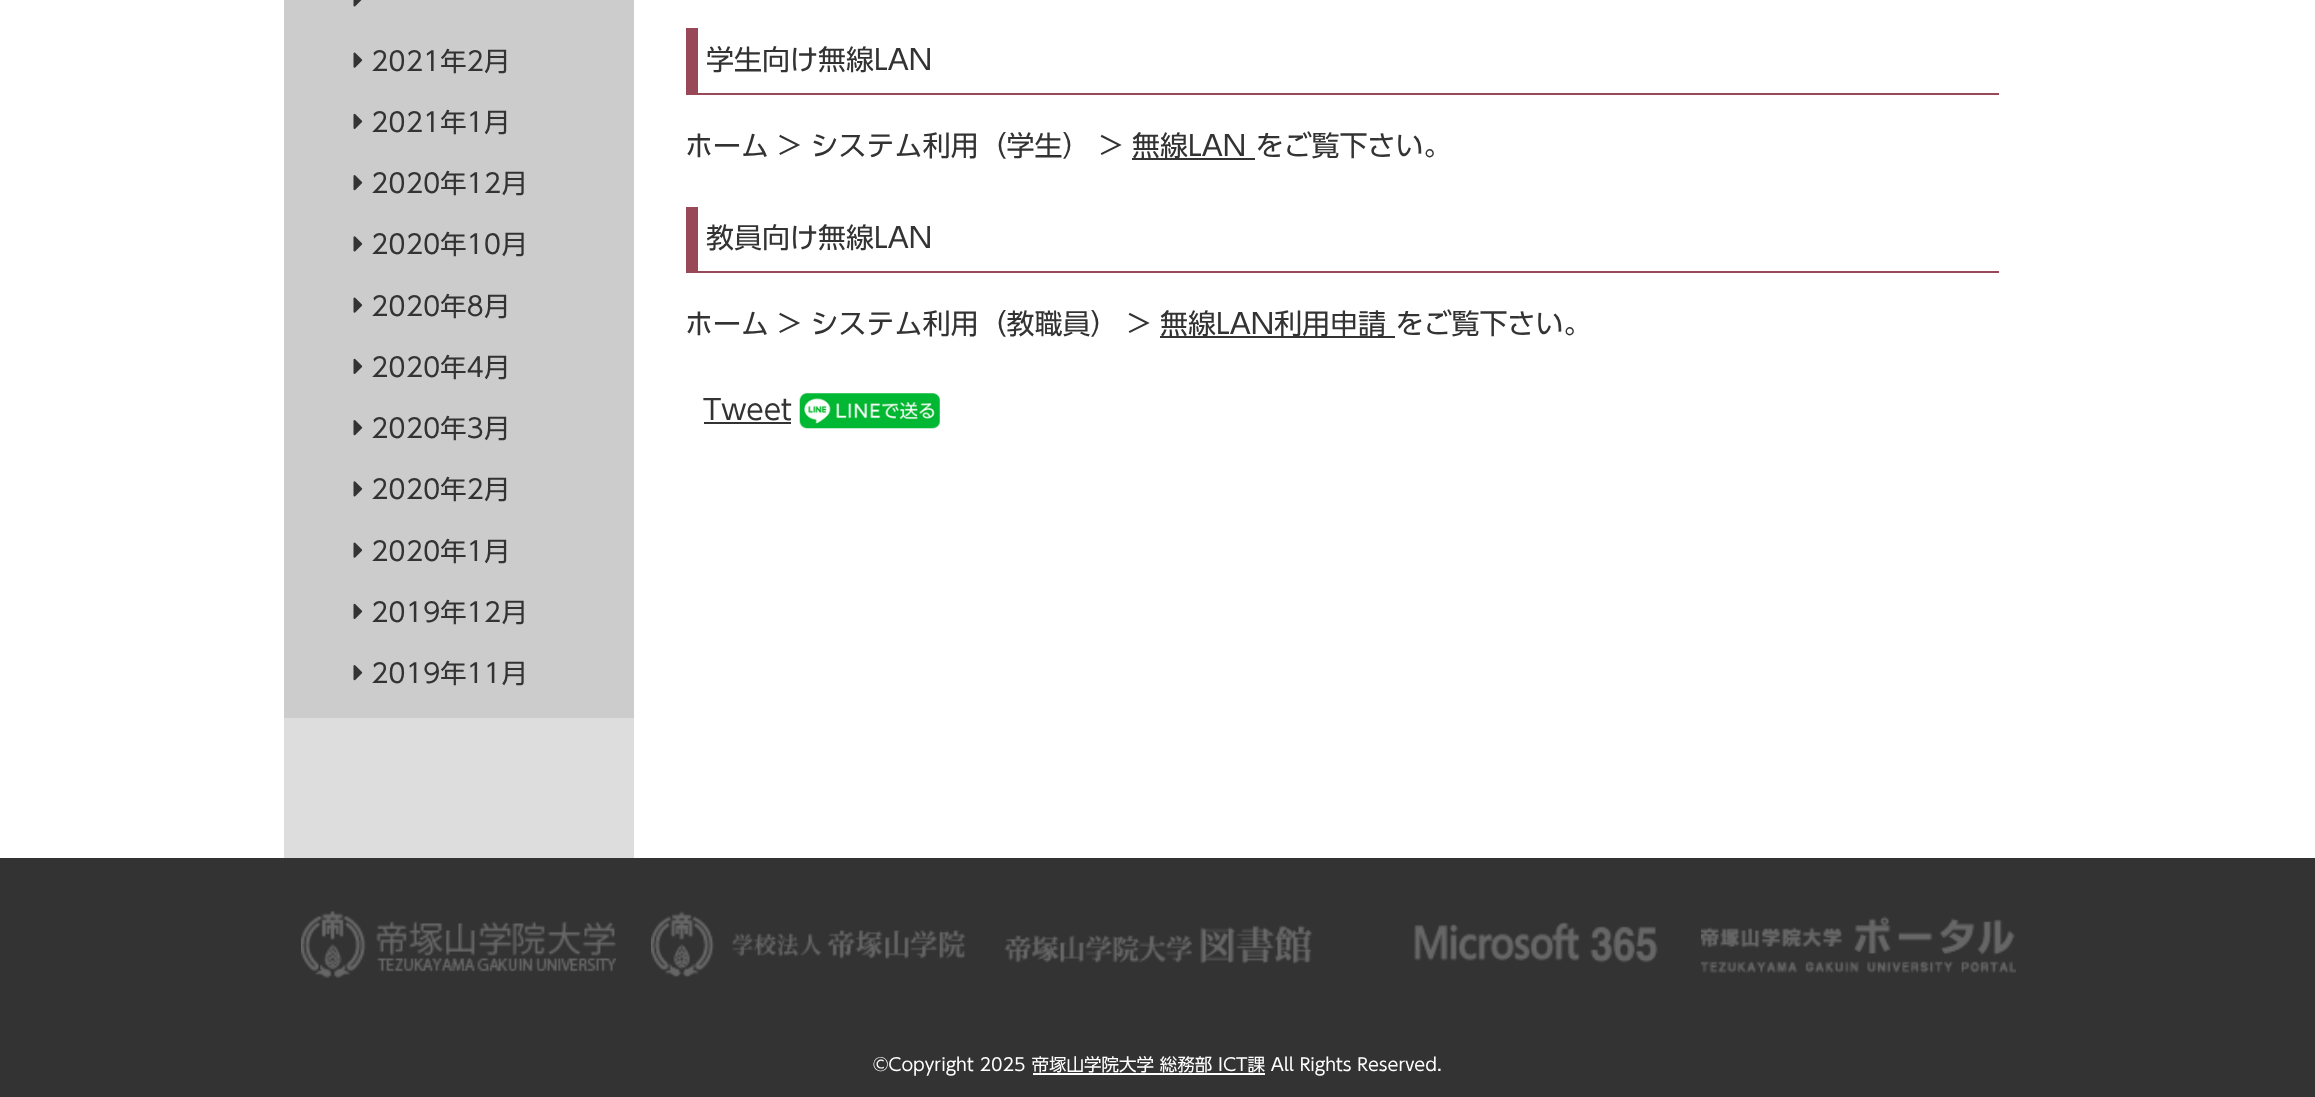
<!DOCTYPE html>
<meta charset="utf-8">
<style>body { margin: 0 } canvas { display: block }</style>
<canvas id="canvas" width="2315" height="1097"></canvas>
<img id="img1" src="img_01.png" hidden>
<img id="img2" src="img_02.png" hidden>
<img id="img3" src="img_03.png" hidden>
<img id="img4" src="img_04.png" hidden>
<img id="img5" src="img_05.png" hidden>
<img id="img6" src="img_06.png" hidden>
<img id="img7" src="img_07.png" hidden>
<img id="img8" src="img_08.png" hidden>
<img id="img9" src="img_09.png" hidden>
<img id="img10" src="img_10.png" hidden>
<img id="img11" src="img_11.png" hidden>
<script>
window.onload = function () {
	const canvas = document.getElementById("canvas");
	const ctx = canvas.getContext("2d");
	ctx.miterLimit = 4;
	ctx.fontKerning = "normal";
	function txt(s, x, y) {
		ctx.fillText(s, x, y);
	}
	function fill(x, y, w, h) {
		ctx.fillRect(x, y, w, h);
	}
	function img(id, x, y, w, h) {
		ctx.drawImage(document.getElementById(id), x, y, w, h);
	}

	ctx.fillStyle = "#FFFFFF";
	fill(0, 0, 2315, 1097);
	ctx.fillStyle = "#DDDDDD";
	fill(284, 718, 350, 140);
	ctx.fillStyle = "#CCCCCC";
	fill(284, 0, 350, 718);
	img("img1", 353, 0, 9, 7);
	img("img2", 353, 52, 10, 16);
	img("img3", 353, 113, 10, 16);
	img("img4", 353, 175, 10, 16);
	img("img5", 353, 236, 10, 16);
	img("img2", 353, 297, 10, 16);
	img("img3", 353, 358, 10, 16);
	img("img4", 353, 420, 10, 16);
	img("img5", 353, 481, 10, 16);
	img("img2", 353, 542, 10, 16);
	img("img3", 353, 603, 10, 16);
	img("img4", 353, 665, 10, 16);
	ctx.fillStyle = "#994858";
	fill(698, 93, 1301, 2);
	fill(686, 28, 12, 67);
	ctx.fillStyle = "#333333";
	fill(1132, 158, 123, 2);
	ctx.fillStyle = "#994858";
	fill(698, 271, 1301, 2);
	fill(686, 207, 12, 66);
	ctx.fillStyle = "#333333";
	fill(1160, 336, 235, 2);
	fill(704, 422, 87, 2);
	img("img6", 799, 393, 141, 36);
	fill(0, 858, 2315, 239);
	img("img7", 301, 911, 315, 67);
	img("img8", 651, 911, 315, 67);
	img("img9", 1004, 925, 309, 39);
	img("img10", 1414, 922, 244, 41);
	img("img11", 1701, 916, 315, 57);
	ctx.fillStyle = "#FFFFFF";
	fill(1033, 1073, 232, 2);
	ctx.font = "26.25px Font";
	ctx.fillStyle = "#333333";
	txt("2021年2月", 371, 71);
	txt("2021年1月", 371, 132);
	txt("2020年12月", 371, 193);
	txt("2020年10月", 371, 254);
	txt("2020年8月", 371, 316);
	txt("2020年4月", 371, 377);
	txt("2020年3月", 371, 438);
	txt("2020年2月", 371, 499);
	txt("2020年1月", 371, 561);
	txt("2019年12月", 371, 622);
	txt("2019年11月", 371, 683);
	ctx.font = "28px Font";
	txt("学生向け無線LAN", 706, 70);
	txt("ホーム > システム利用（学生） >", 685, 156);
	txt("無線LAN をご覧下さい。", 1132, 156);
	txt("教員向け無線LAN", 706, 248);
	txt("ホーム > システム利用（教職員） >", 685, 334);
	txt("無線LAN利用申請 をご覧下さい。", 1160, 334);
	txt("Tweet", 703, 420);
	ctx.font = "17.5px Font";
	ctx.fillStyle = "#FFFFFF";
	txt("©Copyright 2025 帝塚山学院大学 総務部 ICT課 All Rights Reserved.", 873, 1071);
};
</script>
